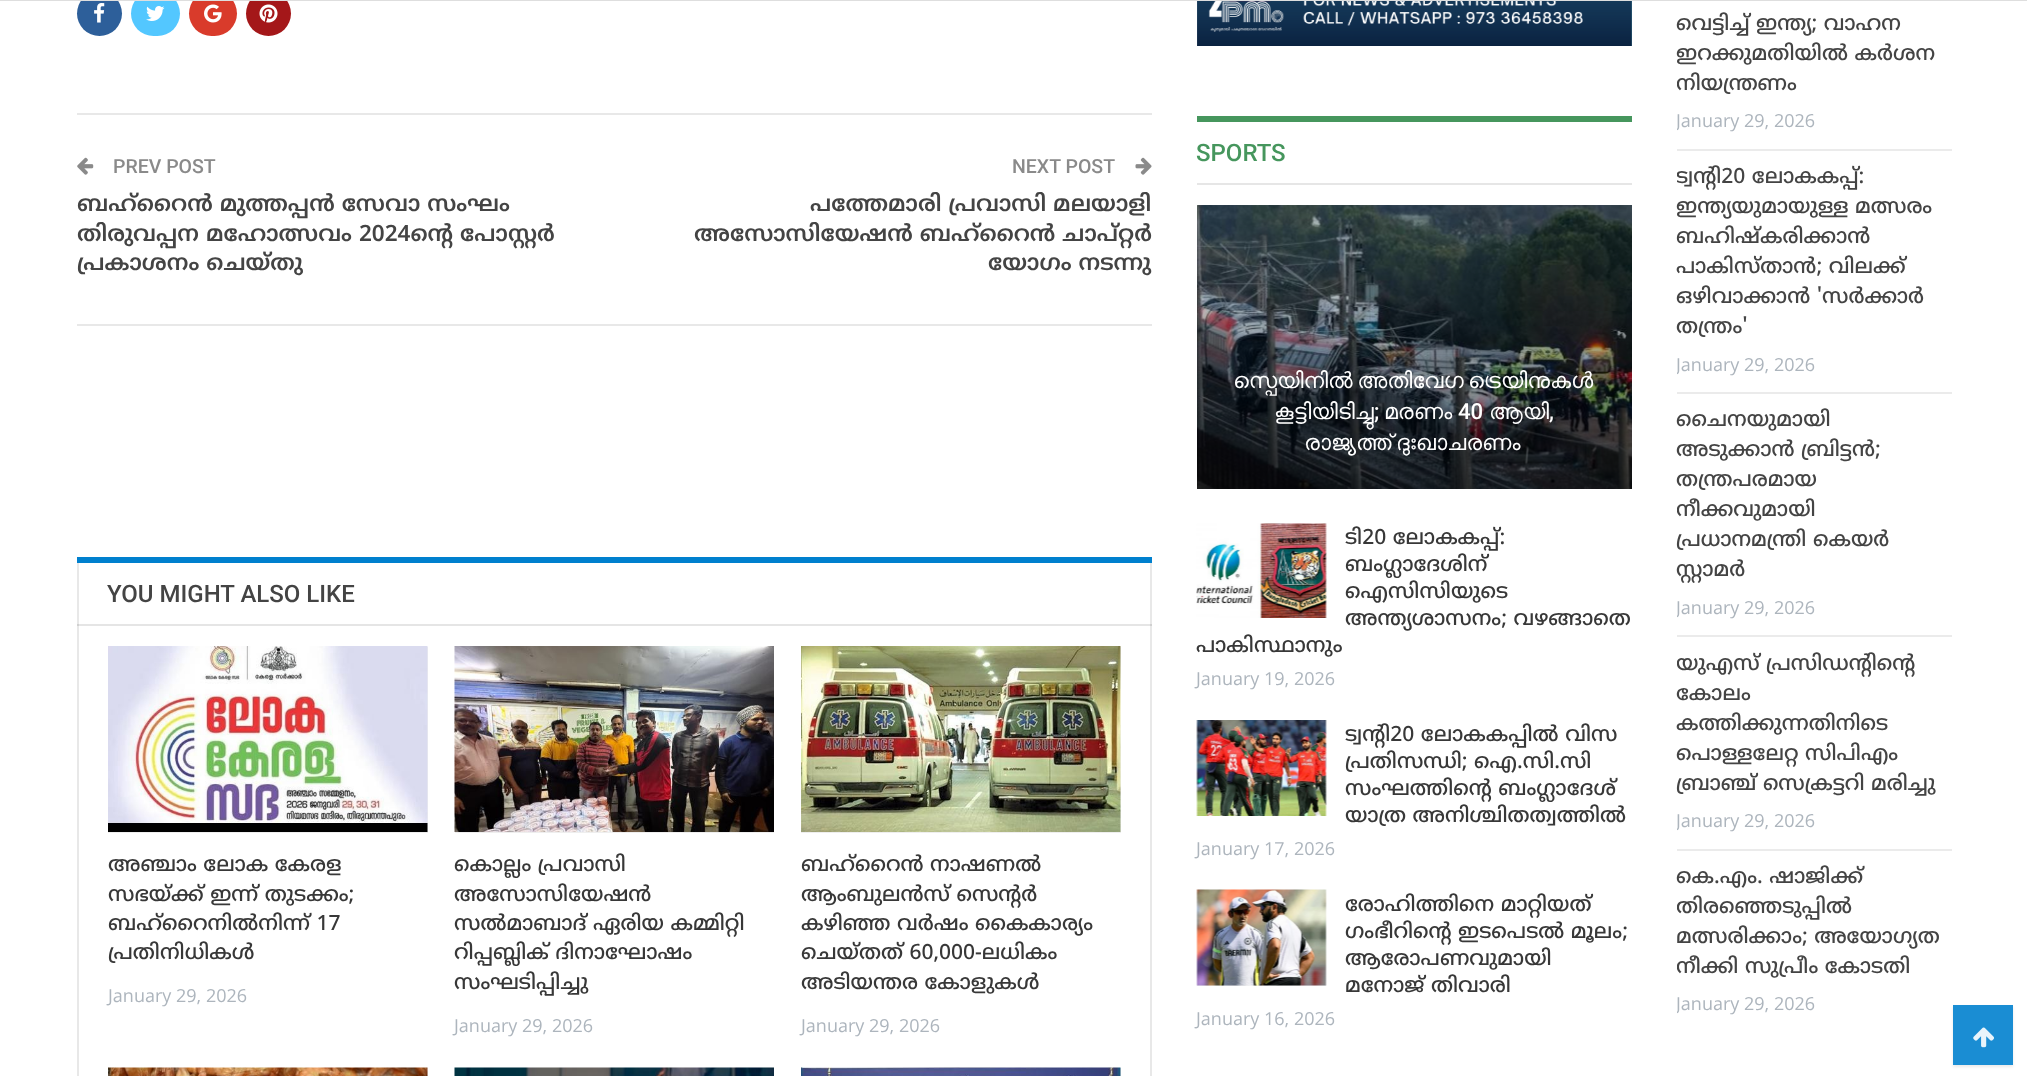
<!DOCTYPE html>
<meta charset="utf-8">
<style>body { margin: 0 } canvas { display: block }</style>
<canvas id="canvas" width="2027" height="1076"></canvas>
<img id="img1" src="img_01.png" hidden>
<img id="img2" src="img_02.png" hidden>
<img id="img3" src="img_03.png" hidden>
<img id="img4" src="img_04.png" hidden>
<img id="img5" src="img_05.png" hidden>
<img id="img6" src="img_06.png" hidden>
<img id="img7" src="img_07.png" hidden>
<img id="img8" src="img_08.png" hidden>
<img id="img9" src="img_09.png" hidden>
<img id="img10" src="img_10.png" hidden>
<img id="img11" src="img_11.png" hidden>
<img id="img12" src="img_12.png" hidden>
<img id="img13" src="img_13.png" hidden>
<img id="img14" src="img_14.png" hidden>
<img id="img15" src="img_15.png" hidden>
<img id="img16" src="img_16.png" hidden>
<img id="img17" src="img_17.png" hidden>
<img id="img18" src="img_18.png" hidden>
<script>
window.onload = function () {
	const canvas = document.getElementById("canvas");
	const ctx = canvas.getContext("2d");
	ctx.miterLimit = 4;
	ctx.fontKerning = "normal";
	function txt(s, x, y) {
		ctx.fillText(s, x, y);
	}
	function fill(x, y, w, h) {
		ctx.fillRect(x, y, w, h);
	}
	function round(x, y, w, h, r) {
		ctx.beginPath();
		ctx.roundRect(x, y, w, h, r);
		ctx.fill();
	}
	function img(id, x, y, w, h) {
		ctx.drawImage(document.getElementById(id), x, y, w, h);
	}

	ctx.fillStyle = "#FFFFFF";
	fill(0, 0, 2027, 1076);
	ctx.fillStyle = "#2D5F9A";
	ctx.beginPath();
	ctx.arc(99.5, 13.5, 22.5, 0, Math.PI * 2);
	ctx.fill();
	ctx.fillStyle = "#53C7FF";
	round(131, -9, 49, 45, 22.5);
	ctx.fillStyle = "#D93B2B";
	round(189, -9, 48, 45, 22.5);
	ctx.fillStyle = "#A41719";
	ctx.beginPath();
	ctx.arc(268.5, 13.5, 22.5, 0, Math.PI * 2);
	ctx.fill();
	ctx.fillStyle = "#DEDEDE";
	fill(0, 0, 2027, 1);
	img("img1", 94, 3, 11, 20);
	img("img2", 146, 6, 19, 15);
	img("img3", 204, 4, 18, 19);
	img("img4", 259, 4, 19, 19);
	ctx.fillStyle = "#E8E8E8";
	fill(77, 113, 1075, 2);
	img("img5", 77, 157, 17, 18);
	img("img6", 1135, 157, 17, 18);
	fill(77, 324, 1075, 2);
	ctx.strokeStyle = "#E8E8E8";
	ctx.lineWidth = 2;
	ctx.strokeRect(78, 558, 1073, 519);
	ctx.fillStyle = "#0080CE";
	fill(77, 557, 1075, 6);
	ctx.fillStyle = "rgba(0, 0, 0, 0.1)";
	fill(77, 624, 1075, 2);
	ctx.fillStyle = "#EEEEEE";
	fill(108, 647, 320, 186);
	img("img7", 108, 646, 320, 186);
	fill(455, 832, 319, 1);
	img("img8", 454, 646, 320, 186);
	fill(801, 647, 320, 186);
	img("img9", 801, 646, 320, 186);
	fill(427, 1068, 1, 8);
	img("img10", 108, 1067, 320, 9);
	img("img11", 454, 1067, 320, 9);
	fill(1120, 1068, 1, 8);
	img("img12", 801, 1067, 320, 9);
	img("img13", 1197, 1, 435, 45);
	ctx.fillStyle = "#46965D";
	fill(1197, 116, 435, 6);
	ctx.fillStyle = "#E6E6E6";
	fill(1197, 183, 435, 2);
	img("img14", 1197, 205, 435, 284);
	img("img15", 1196, 523, 131, 95);
	img("img16", 1196, 720, 131, 96);
	ctx.fillStyle = "#EEEEEE";
	fill(1197, 890, 129, 96);
	img("img17", 1196, 889, 131, 97);
	ctx.fillStyle = "#EBEBEB";
	fill(1677, 149, 275, 2);
	fill(1677, 392, 275, 2);
	fill(1677, 635, 275, 2);
	fill(1677, 849, 275, 2);
	ctx.fillStyle = "rgba(26, 26, 26, 0.09)";
	ctx.filter = "blur(1.5px)";
	ctx.beginPath();
	ctx.rect(1953, 1007, 60, 60);
	ctx.fill();
	ctx.filter = "none";
	ctx.fillStyle = "#1A8DD3";
	fill(1953, 1005, 60, 60);
	img("img18", 1973, 1027, 21, 21);
	ctx.font = "500 19.5px Roboto";
	ctx.fillStyle = "#8A8A8A";
	txt("PREV POST", 113, 173);
	ctx.font = "600 22.5px Noto Sans Malayalam";
	ctx.fillStyle = "#444444";
	txt("ബഹ്‌റൈൻ മുത്തപ്പൻ സേവാ സംഘം", 77, 211);
	txt("തിരുവപ്പന മഹോത്സവം 2024ന്റെ പോസ്റ്റർ", 77, 241);
	txt("പ്രകാശനം ചെയ്തു", 77, 270);
	ctx.font = "500 19.5px Roboto";
	ctx.fillStyle = "#8A8A8A";
	txt("NEXT POST", 1012, 173);
	ctx.font = "600 22.5px Noto Sans Malayalam";
	ctx.fillStyle = "#444444";
	txt("പത്തേമാരി പ്രവാസി മലയാളി", 810, 211);
	txt("അസോസിയേഷൻ ബഹ്റൈൻ ചാപ്റ്റർ", 694, 241);
	txt("യോഗം നടന്നു", 988, 270);
	ctx.font = "500 24px Roboto";
	txt("YOU MIGHT ALSO LIKE", 107, 602);
	ctx.font = "500 21px Noto Sans Malayalam";
	ctx.fillStyle = "#383838";
	txt("അഞ്ചാം ലോക കേരള", 108, 871);
	txt("സഭയ്ക്ക് ഇന്ന് തുടക്കം;", 108, 901);
	txt("ബഹ്‌റൈനിൽനിന്ന് 17", 108, 930);
	txt("പ്രതിനിധികൾ", 108, 959);
	ctx.font = "18px Open Sans";
	ctx.fillStyle = "#ADB5BD";
	txt("January 29, 2026", 108, 1002);
	ctx.font = "500 21px Noto Sans Malayalam";
	ctx.fillStyle = "#383838";
	txt("കൊല്ലം പ്രവാസി", 454, 871);
	txt("അസോസിയേഷൻ", 454, 901);
	txt("സൽമാബാദ് ഏരിയ കമ്മിറ്റി", 454, 930);
	txt("റിപ്പബ്ലിക് ദിനാഘോഷം", 454, 959);
	txt("സംഘടിപ്പിച്ചു", 454, 989);
	ctx.font = "18px Open Sans";
	ctx.fillStyle = "#ADB5BD";
	txt("January 29, 2026", 454, 1032);
	ctx.font = "500 21px Noto Sans Malayalam";
	ctx.fillStyle = "#383838";
	txt("ബഹ്‌റൈൻ നാഷണൽ", 801, 871);
	txt("ആംബുലൻസ് സെന്റർ", 801, 901);
	txt("കഴിഞ്ഞ വർഷം കൈകാര്യം", 801, 930);
	txt("ചെയ്തത് 60,000-ലധികം", 801, 959);
	txt("അടിയന്തര കോളുകൾ", 801, 989);
	ctx.font = "18px Open Sans";
	ctx.fillStyle = "#ADB5BD";
	txt("January 29, 2026", 801, 1032);
	ctx.font = "500 24px Roboto";
	ctx.fillStyle = "#46965D";
	txt("SPORTS", 1196, 161);
	ctx.save();
	ctx.beginPath();
	ctx.rect(1227, 366, 375, 93);
	ctx.clip();
	ctx.wordSpacing = "-1px";
	ctx.font = "22.1px FreeSans";
	ctx.fillStyle = "#FFFFFF";
	txt("സ്പെയിനിൽ അതിവേഗ ട്രെയിനുകൾ", 1233, 388);
	ctx.restore();
	ctx.font = "22.1px FreeSans";
	ctx.fillStyle = "#FFFFFF";
	txt("കൂട്ടിയിടിച്ചു", 1274, 419);
	ctx.font = "500 22.1px Roboto";
	txt(";", 1374, 419);
	ctx.font = "22.1px FreeSans";
	txt("മരണം", 1384, 419);
	ctx.font = "500 22.1px Roboto";
	txt("40", 1458, 419);
	ctx.font = "22.1px FreeSans";
	txt("ആയി", 1489, 419);
	ctx.font = "500 22.1px Roboto";
	txt(",", 1549, 419);
	ctx.wordSpacing = "-1px";
	ctx.font = "22.1px FreeSans";
	txt("രാജ്യത്ത് ദുഃഖാചരണം", 1304, 450);
	ctx.wordSpacing = "0px";
	ctx.font = "500 21px Noto Sans Malayalam";
	ctx.fillStyle = "#383838";
	txt("ടി20 ലോകകപ്പ്:", 1345, 544);
	txt("ബംഗ്ലാദേശിന്", 1345, 571);
	txt("ഐസിസിയുടെ", 1345, 598);
	txt("അന്ത്യശാസനം; വഴങ്ങാതെ", 1345, 625);
	txt("പാകിസ്ഥാനും", 1196, 652);
	ctx.font = "18px Open Sans";
	ctx.fillStyle = "#ADB5BD";
	txt("January 19, 2026", 1196, 685);
	ctx.font = "500 21px Noto Sans Malayalam";
	ctx.fillStyle = "#383838";
	txt("ട്വന്റി20 ലോകകപ്പിൽ വിസ", 1345, 741);
	txt("പ്രതിസന്ധി; ഐ.സി.സി", 1345, 768);
	txt("സംഘത്തിന്റെ ബംഗ്ലാദേശ്", 1345, 795);
	txt("യാത്ര അനിശ്ചിതത്വത്തിൽ", 1345, 822);
	ctx.font = "18px Open Sans";
	ctx.fillStyle = "#ADB5BD";
	txt("January 17, 2026", 1196, 855);
	ctx.font = "500 21px Noto Sans Malayalam";
	ctx.fillStyle = "#383838";
	txt("രോഹിത്തിനെ മാറ്റിയത്", 1345, 911);
	txt("ഗംഭീറിന്റെ ഇടപെടൽ മൂലം;", 1345, 938);
	txt("ആരോപണവുമായി", 1345, 965);
	txt("മനോജ് തിവാരി", 1345, 992);
	ctx.font = "18px Open Sans";
	ctx.fillStyle = "#ADB5BD";
	txt("January 16, 2026", 1196, 1025);
	ctx.font = "500 21px Noto Sans Malayalam";
	ctx.fillStyle = "#444444";
	txt("വെട്ടിച്ച് ഇന്ത്യ; വാഹന", 1676, 30);
	txt("ഇറക്കുമതിയിൽ കർശന", 1676, 60);
	ctx.save();
	ctx.beginPath();
	ctx.rect(1677, 0, 275, 1032);
	ctx.clip();
	txt("നിയന്ത്രണം", 1676, 90);
	ctx.font = "18px Open Sans";
	ctx.fillStyle = "#ADB5BD";
	txt("January 29, 2026", 1676, 127);
	ctx.font = "500 21px Noto Sans Malayalam";
	ctx.fillStyle = "#444444";
	txt("ട്വന്റി20 ലോകകപ്പ്:", 1676, 183);
	ctx.restore();
	txt("ഇന്ത്യയുമായുള്ള മത്സരം", 1676, 213);
	txt("ബഹിഷ്കരിക്കാൻ", 1676, 243);
	txt("പാകിസ്താൻ; വിലക്ക്", 1676, 273);
	txt("ഒഴിവാക്കാൻ 'സർക്കാർ", 1676, 303);
	txt("തന്ത്രം'", 1676, 333);
	ctx.save();
	ctx.beginPath();
	ctx.rect(1677, 0, 275, 1032);
	ctx.clip();
	ctx.font = "18px Open Sans";
	ctx.fillStyle = "#ADB5BD";
	txt("January 29, 2026", 1676, 371);
	ctx.restore();
	txt("ചൈനയുമായി", 1676, 426);
	txt("അടുക്കാൻ ബ്രിട്ടൻ;", 1676, 456);
	txt("തന്ത്രപരമായ", 1676, 486);
	ctx.save();
	ctx.beginPath();
	ctx.rect(1677, 0, 275, 1032);
	ctx.clip();
	txt("നീക്കവുമായി", 1676, 516);
	ctx.restore();
	txt("പ്രധാനമന്ത്രി കെയർ", 1676, 546);
	txt("സ്റ്റാമർ", 1676, 576);
	ctx.save();
	ctx.beginPath();
	ctx.rect(1677, 0, 275, 1032);
	ctx.clip();
	ctx.font = "18px Open Sans";
	ctx.fillStyle = "#ADB5BD";
	txt("January 29, 2026", 1676, 614);
	ctx.font = "500 21px Noto Sans Malayalam";
	ctx.fillStyle = "#444444";
	txt("യുഎസ് പ്രസിഡന്റിന്റെ", 1676, 670);
	ctx.restore();
	txt("കോലം", 1676, 700);
	txt("കത്തിക്കുന്നതിനിടെ", 1676, 730);
	txt("പൊള്ളലേറ്റ സിപിഎം", 1676, 760);
	txt("ബ്രാഞ്ച് സെക്രട്ടറി മരിച്ചു", 1676, 790);
	ctx.save();
	ctx.beginPath();
	ctx.rect(1677, 0, 275, 1032);
	ctx.clip();
	ctx.font = "18px Open Sans";
	ctx.fillStyle = "#ADB5BD";
	txt("January 29, 2026", 1676, 827);
	ctx.restore();
	txt("കെ.എം. ഷാജിക്ക്", 1676, 883);
	ctx.save();
	ctx.beginPath();
	ctx.rect(1677, 0, 275, 1032);
	ctx.clip();
	txt("തിരഞ്ഞെടുപ്പിൽ", 1676, 913);
	ctx.restore();
	txt("മത്സരിക്കാം; അയോഗ്യത", 1676, 943);
	ctx.save();
	ctx.beginPath();
	ctx.rect(1677, 0, 275, 1032);
	ctx.clip();
	txt("നീക്കി സുപ്രീം കോടതി", 1676, 973);
	ctx.font = "18px Open Sans";
	ctx.fillStyle = "#ADB5BD";
	txt("January 29, 2026", 1676, 1010);
	ctx.restore();
};
</script>
